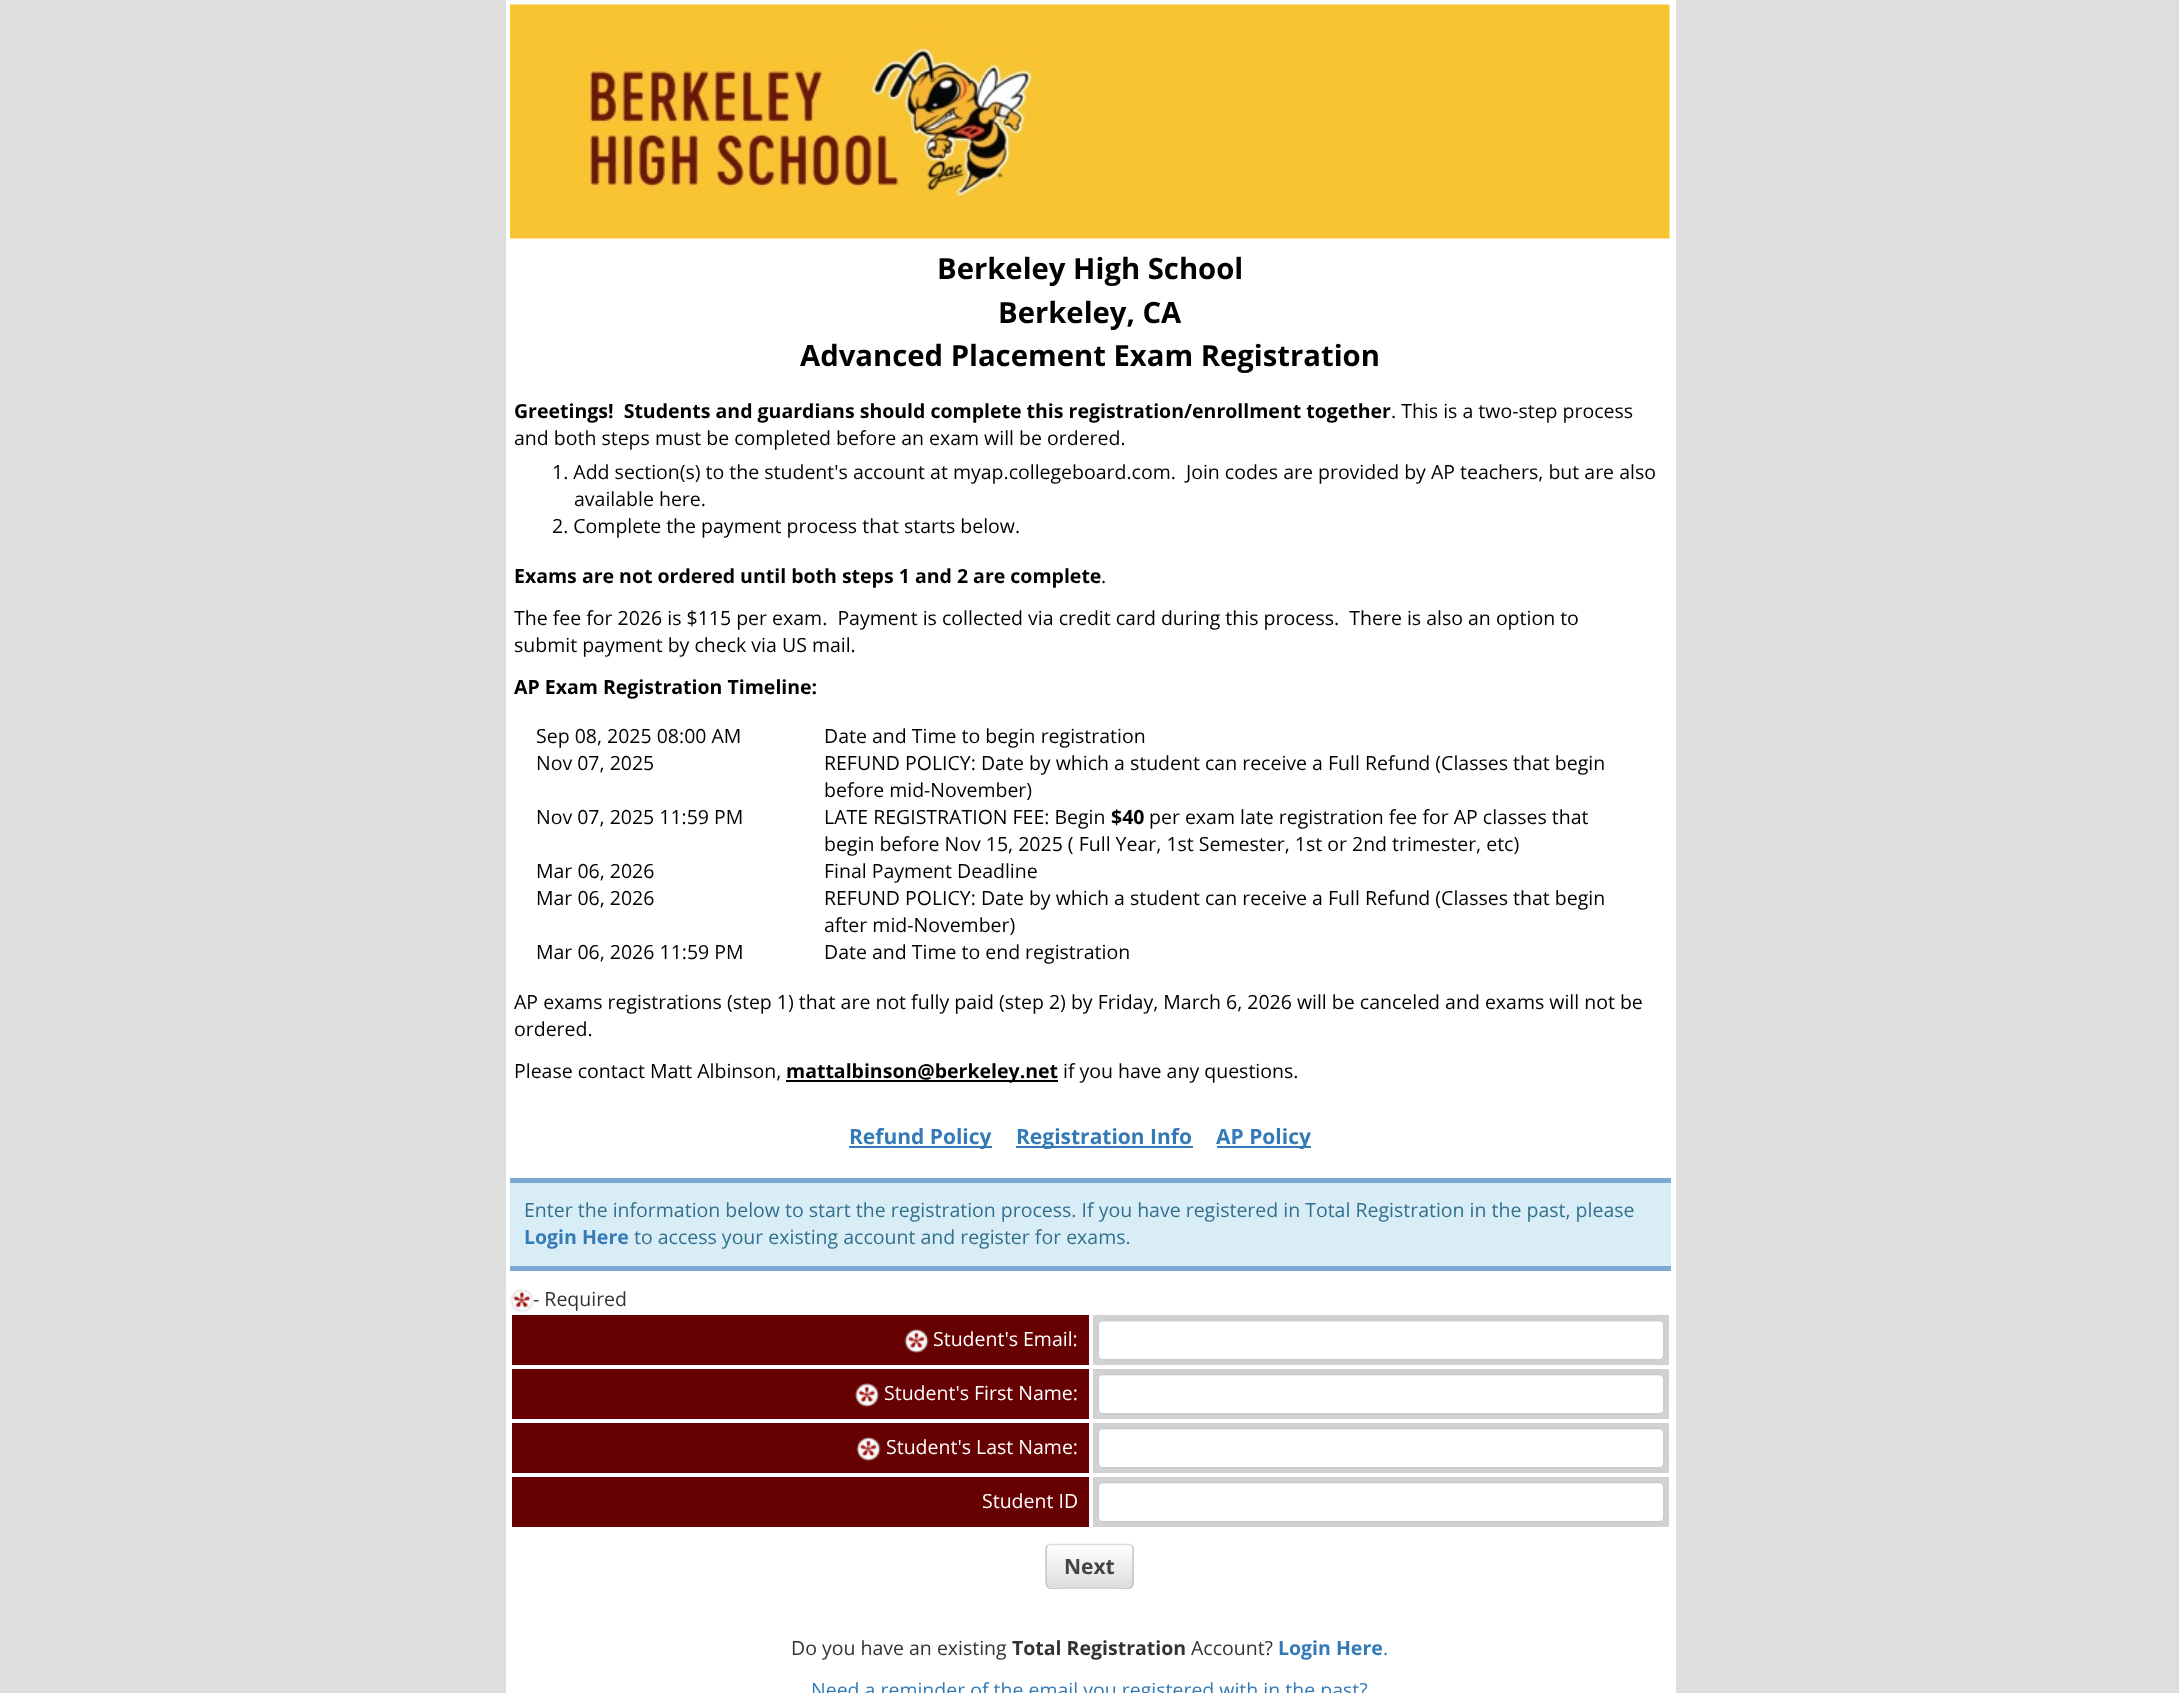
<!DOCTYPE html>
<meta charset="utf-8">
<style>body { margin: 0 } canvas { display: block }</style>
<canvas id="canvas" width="2179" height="1693"></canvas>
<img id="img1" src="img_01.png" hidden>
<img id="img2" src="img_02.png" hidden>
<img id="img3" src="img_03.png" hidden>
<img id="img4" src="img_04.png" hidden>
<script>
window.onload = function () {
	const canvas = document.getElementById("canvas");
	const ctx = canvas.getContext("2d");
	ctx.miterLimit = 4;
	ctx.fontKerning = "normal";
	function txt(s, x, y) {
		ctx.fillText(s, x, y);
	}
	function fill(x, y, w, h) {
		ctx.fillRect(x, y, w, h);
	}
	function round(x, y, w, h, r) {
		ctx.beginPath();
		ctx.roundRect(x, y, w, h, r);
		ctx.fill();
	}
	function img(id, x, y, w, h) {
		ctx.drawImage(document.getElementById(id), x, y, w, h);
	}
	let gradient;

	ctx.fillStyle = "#DEDEDE";
	fill(0, 0, 2179, 1693);
	ctx.fillStyle = "#FFFFFF";
	fill(506, 0, 1170, 1693);
	img("img1", 510, 4, 1160, 235);
	ctx.fillStyle = "#000000";
	fill(786, 1080, 272, 2);
	ctx.fillStyle = "#337AB7";
	fill(849, 1146, 143, 2);
	fill(1016, 1146, 177, 2);
	fill(1217, 1146, 94, 2);
	ctx.fillStyle = "#D9EDF7";
	fill(510, 1183, 1161, 83);
	ctx.fillStyle = "#7CA9D4";
	fill(510, 1178, 1161, 5);
	fill(510, 1266, 1161, 5);
	img("img2", 510, 1288, 24, 25);
	ctx.fillStyle = "#670001";
	fill(512, 1315, 577, 50);
	img("img3", 904, 1329, 25, 24);
	ctx.fillStyle = "#D1D1D1";
	fill(1093, 1315, 576, 50);
	ctx.fillStyle = "#FFFFFF";
	round(1097, 1319, 568, 42, 6);
	ctx.fillStyle = "#ECECEC";
	ctx.beginPath();
	ctx.moveTo(1102, 1322);
	ctx.lineTo(1659, 1322);
	ctx.bezierCurveTo(1661, 1322, 1664, 1324, 1664, 1326);
	ctx.bezierCurveTo(1664, 1323, 1662, 1320, 1659, 1320);
	ctx.lineTo(1103, 1320);
	ctx.bezierCurveTo(1100, 1320, 1098, 1323, 1098, 1326);
	ctx.bezierCurveTo(1098, 1324, 1100, 1322, 1102, 1322);
	ctx.closePath();
	ctx.fill();
	ctx.beginPath();
	ctx.roundRect(1098, 1320, 566, 40, 5);
	ctx.strokeStyle = "#CCCCCC";
	ctx.lineWidth = 2;
	ctx.stroke();
	ctx.fillStyle = "#670001";
	fill(512, 1369, 577, 50);
	img("img4", 855, 1383, 24, 24);
	ctx.fillStyle = "#D1D1D1";
	fill(1093, 1369, 576, 50);
	ctx.fillStyle = "#FFFFFF";
	round(1097, 1373, 568, 42, 6);
	ctx.fillStyle = "#ECECEC";
	ctx.beginPath();
	ctx.moveTo(1102, 1376);
	ctx.lineTo(1659, 1376);
	ctx.bezierCurveTo(1661, 1376, 1664, 1378, 1664, 1380);
	ctx.bezierCurveTo(1664, 1377, 1662, 1374, 1659, 1374);
	ctx.lineTo(1103, 1374);
	ctx.bezierCurveTo(1100, 1374, 1098, 1377, 1098, 1380);
	ctx.bezierCurveTo(1098, 1378, 1100, 1376, 1102, 1376);
	ctx.closePath();
	ctx.fill();
	ctx.beginPath();
	ctx.roundRect(1098, 1374, 566, 40, 5);
	ctx.stroke();
	ctx.fillStyle = "#670001";
	fill(512, 1423, 577, 50);
	img("img3", 856, 1437, 25, 24);
	ctx.fillStyle = "#D1D1D1";
	fill(1093, 1423, 576, 50);
	ctx.fillStyle = "#FFFFFF";
	round(1097, 1427, 568, 42, 6);
	ctx.fillStyle = "#ECECEC";
	ctx.beginPath();
	ctx.moveTo(1102, 1430);
	ctx.lineTo(1659, 1430);
	ctx.bezierCurveTo(1661, 1430, 1664, 1432, 1664, 1434);
	ctx.bezierCurveTo(1664, 1431, 1662, 1428, 1659, 1428);
	ctx.lineTo(1103, 1428);
	ctx.bezierCurveTo(1100, 1428, 1098, 1431, 1098, 1434);
	ctx.bezierCurveTo(1098, 1432, 1100, 1430, 1102, 1430);
	ctx.closePath();
	ctx.fill();
	ctx.beginPath();
	ctx.roundRect(1098, 1428, 566, 40, 5);
	ctx.stroke();
	ctx.fillStyle = "#670001";
	fill(512, 1477, 577, 50);
	ctx.fillStyle = "#D1D1D1";
	fill(1093, 1477, 576, 50);
	ctx.fillStyle = "#FFFFFF";
	round(1097, 1481, 568, 42, 6);
	ctx.fillStyle = "#ECECEC";
	ctx.beginPath();
	ctx.moveTo(1102, 1484);
	ctx.lineTo(1659, 1484);
	ctx.bezierCurveTo(1661, 1484, 1664, 1486, 1664, 1488);
	ctx.bezierCurveTo(1664, 1485, 1662, 1482, 1659, 1482);
	ctx.lineTo(1103, 1482);
	ctx.bezierCurveTo(1100, 1482, 1098, 1485, 1098, 1488);
	ctx.bezierCurveTo(1098, 1486, 1100, 1484, 1102, 1484);
	ctx.closePath();
	ctx.fill();
	ctx.beginPath();
	ctx.roundRect(1098, 1482, 566, 40, 5);
	ctx.stroke();
	ctx.save();
	ctx.beginPath();
	ctx.roundRect(1046, 1544, 88, 45, 5);
	ctx.clip();
	gradient = ctx.createLinearGradient(1090, 1545, 1090, 1587);
	gradient.addColorStop(0, "#FFFFFF");
	gradient.addColorStop(1, "#DEDEDE");
	ctx.fillStyle = gradient;
	fill(1046, 1545, 88, 42);
	ctx.restore();
	ctx.beginPath();
	ctx.moveTo(1047.5, 1545.5);
	ctx.lineTo(1049.5, 1544.5);
	ctx.lineTo(1130, 1544.5);
	ctx.lineTo(1132, 1545.5);
	ctx.strokeStyle = "#DEDEDE";
	ctx.lineWidth = 1.5;
	ctx.stroke();
	ctx.beginPath();
	ctx.moveTo(1132, 1545.5);
	ctx.bezierCurveTo(1134, 1547.5, 1133, 1552, 1133, 1554);
	ctx.lineTo(1133, 1578);
	ctx.bezierCurveTo(1133, 1591, 1131.5, 1588, 1116, 1588);
	ctx.lineTo(1063, 1588);
	ctx.bezierCurveTo(1048, 1588, 1046, 1591, 1046, 1578);
	ctx.lineTo(1046, 1554);
	ctx.bezierCurveTo(1046, 1552, 1045.5, 1547.5, 1047.5, 1545.5);
	ctx.strokeStyle = "#C5C5C5";
	ctx.stroke();
	ctx.font = "bold 29.25px Open Sans";
	ctx.fillStyle = "#000000";
	txt("Berkeley High School", 937, 279);
	txt("Berkeley, CA", 998, 323);
	txt("Advanced Placement Exam Registration", 800, 366);
	ctx.font = "bold 19.5px Open Sans";
	txt("Greetings!  Students and guardians should complete this registration/enrollment together", 514, 418);
	ctx.font = "19.5px Open Sans";
	txt(". This is a two-step process", 1391, 418);
	txt("and both steps must be completed before an exam will be ordered.", 514, 445);
	txt("1. Add section(s) to the student's account at myap.collegeboard.com.  Join codes are provided by AP teachers, but are also", 552, 479);
	txt("available here.", 574, 506);
	txt("2. Complete the payment process that starts below.", 552, 533);
	ctx.font = "bold 19.5px Open Sans";
	txt("Exams are not ordered until both steps 1 and 2 are complete", 514, 583);
	ctx.font = "19.5px Open Sans";
	txt(".", 1101, 583);
	txt("The fee for 2026 is $115 per exam.  Payment is collected via credit card during this process.  There is also an option to", 514, 625);
	txt("submit payment by check via US mail.", 514, 652);
	ctx.font = "bold 19.5px Open Sans";
	txt("AP Exam Registration Timeline:", 514, 694);
	ctx.font = "19.5px Open Sans";
	txt("Sep 08, 2025 08:00 AM", 536, 743);
	txt("Date and Time to begin registration", 824, 743);
	txt("Nov 07, 2025", 536, 770);
	txt("REFUND POLICY: Date by which a student can receive a Full Refund (Classes that begin", 824, 770);
	txt("before mid-November)", 824, 797);
	txt("Nov 07, 2025 11:59 PM", 536, 824);
	txt("LATE REGISTRATION FEE: Begin", 824, 824);
	ctx.font = "bold 19.5px Open Sans";
	txt("$40", 1111, 824);
	ctx.font = "19.5px Open Sans";
	txt("per exam late registration fee for AP classes that", 1149, 824);
	txt("begin before Nov 15, 2025 ( Full Year, 1st Semester, 1st or 2nd trimester, etc)", 824, 851);
	txt("Mar 06, 2026", 536, 878);
	txt("Final Payment Deadline", 824, 878);
	txt("Mar 06, 2026", 536, 905);
	txt("REFUND POLICY: Date by which a student can receive a Full Refund (Classes that begin", 824, 905);
	txt("after mid-November)", 824, 932);
	txt("Mar 06, 2026 11:59 PM", 536, 959);
	txt("Date and Time to end registration", 824, 959);
	txt("AP exams registrations (step 1) that are not fully paid (step 2) by Friday, March 6, 2026 will be canceled and exams will not be", 514, 1009);
	txt("ordered.", 514, 1036);
	txt("Please contact Matt Albinson,", 514, 1078);
	ctx.font = "bold 19.5px Open Sans";
	txt("mattalbinson@berkeley.net", 786, 1078);
	ctx.font = "19.5px Open Sans";
	txt("if you have any questions.", 1063, 1078);
	ctx.font = "bold 21px Open Sans";
	ctx.fillStyle = "#337AB7";
	txt("Refund Policy", 849, 1144);
	txt("Registration Info", 1016, 1144);
	txt("AP Policy", 1216, 1144);
	ctx.font = "19.5px Open Sans";
	ctx.fillStyle = "#31708F";
	txt("Enter the information below to start the registration process. If you have registered in Total Registration in the past, please", 524, 1217);
	ctx.font = "bold 19.5px Open Sans";
	ctx.fillStyle = "#337AB7";
	txt("Login Here", 524, 1244);
	ctx.font = "19.5px Open Sans";
	ctx.fillStyle = "#31708F";
	txt("to access your existing account and register for exams.", 634, 1244);
	ctx.fillStyle = "#333333";
	txt("- Required", 533, 1306);
	ctx.fillStyle = "#FFFFFF";
	txt("Student's Email:", 933, 1346);
	txt("Student's First Name:", 884, 1400);
	txt("Student's Last Name:", 886, 1454);
	txt("Student ID", 982, 1508);
	ctx.font = "bold 21px Open Sans";
	ctx.fillStyle = "#444444";
	txt("Next", 1064, 1574);
	ctx.font = "19.5px Open Sans";
	ctx.fillStyle = "#333333";
	txt("Do you have an existing", 791, 1655);
	ctx.font = "bold 19.5px Open Sans";
	txt("Total Registration", 1012, 1655);
	ctx.font = "19.5px Open Sans";
	txt("Account?", 1191, 1655);
	ctx.font = "bold 19.5px Open Sans";
	ctx.fillStyle = "#337AB7";
	txt("Login Here", 1278, 1655);
	ctx.font = "19.5px Open Sans";
	txt(".", 1383, 1655);
	txt("Need a reminder of the email you registered with in the past?", 811, 1697);
};
</script>
